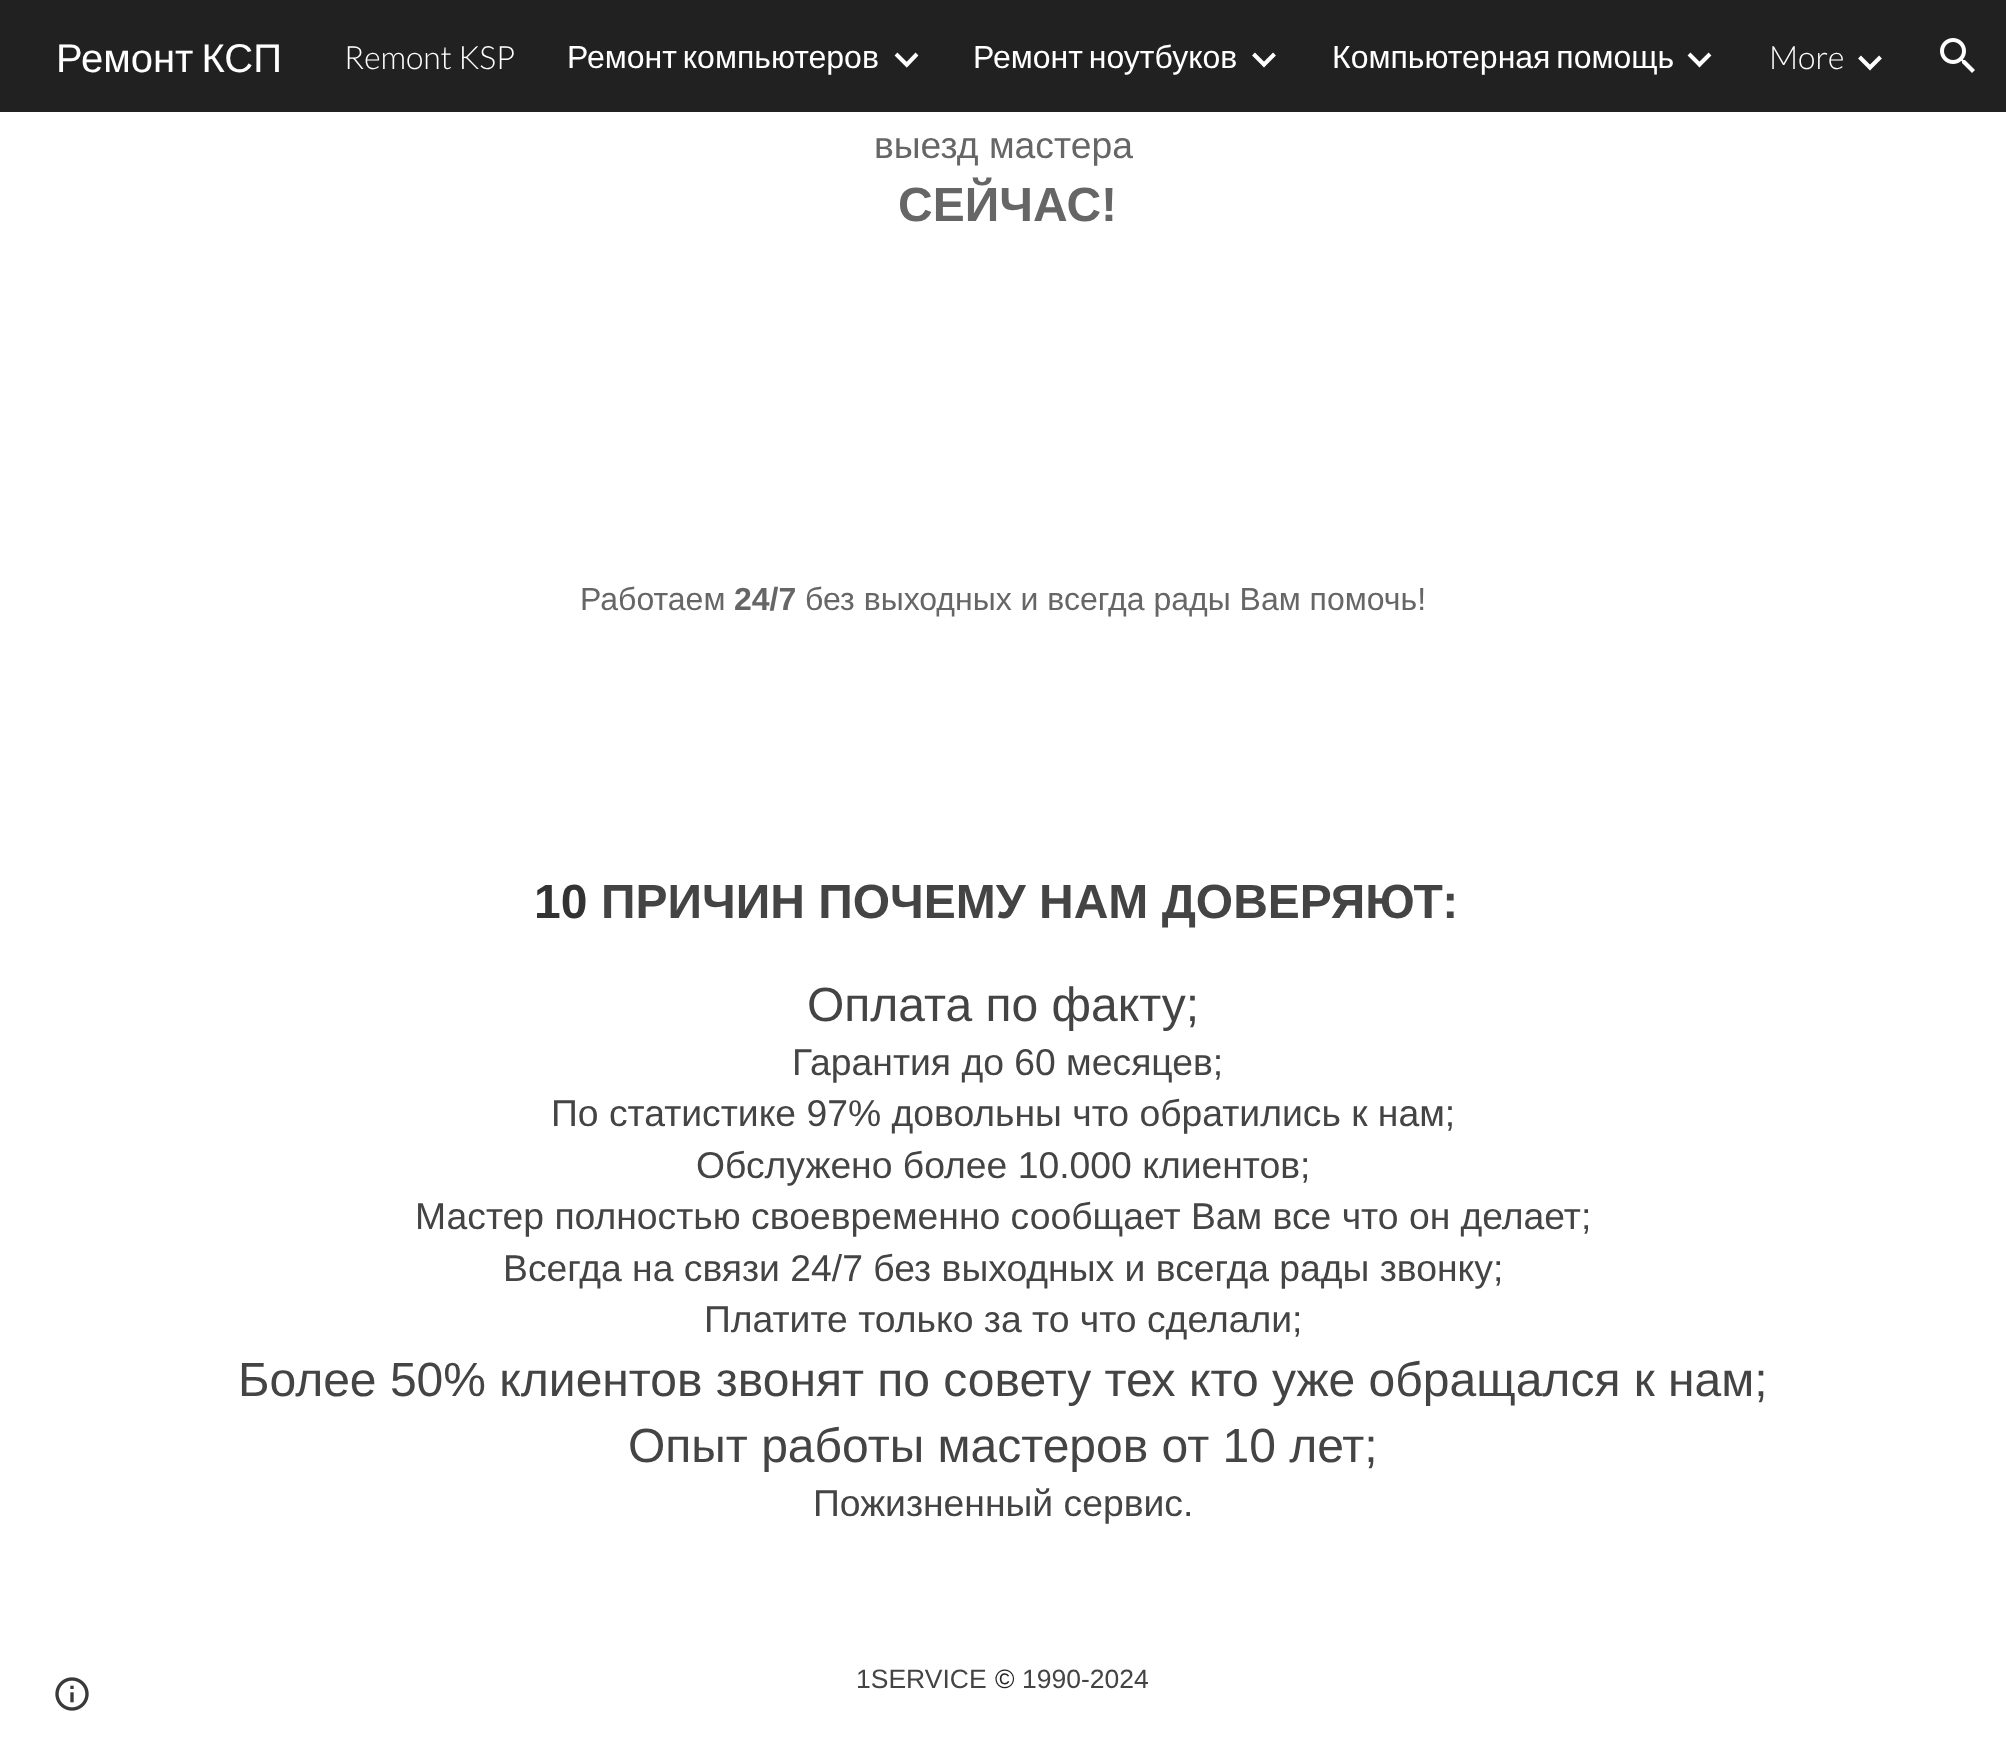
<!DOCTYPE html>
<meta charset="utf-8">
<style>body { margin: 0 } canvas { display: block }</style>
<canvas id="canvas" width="2006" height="1761"></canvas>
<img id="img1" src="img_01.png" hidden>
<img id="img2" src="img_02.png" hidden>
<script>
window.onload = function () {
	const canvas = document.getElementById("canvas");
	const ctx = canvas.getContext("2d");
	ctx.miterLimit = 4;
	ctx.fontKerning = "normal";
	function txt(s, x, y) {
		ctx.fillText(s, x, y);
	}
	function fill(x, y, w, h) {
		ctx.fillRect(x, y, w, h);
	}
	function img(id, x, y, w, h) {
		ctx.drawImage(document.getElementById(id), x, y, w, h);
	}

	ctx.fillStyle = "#FFFFFF";
	fill(0, 0, 2006, 1761);
	ctx.fillStyle = "#212121";
	fill(0, 0, 2006, 112);
	ctx.beginPath();
	ctx.moveTo(896, 54);
	ctx.lineTo(908, 66);
	ctx.moveTo(905.5, 66);
	ctx.lineTo(917, 54);
	ctx.strokeStyle = "#FFFFFF";
	ctx.lineWidth = 4;
	ctx.stroke();
	ctx.beginPath();
	ctx.moveTo(1253.5, 54);
	ctx.lineTo(1265.5, 66);
	ctx.moveTo(1262.5, 66);
	ctx.lineTo(1274.5, 54);
	ctx.stroke();
	ctx.beginPath();
	ctx.moveTo(1689, 54);
	ctx.lineTo(1701, 66);
	ctx.moveTo(1698, 66);
	ctx.lineTo(1710, 54);
	ctx.stroke();
	ctx.beginPath();
	ctx.moveTo(1859.5, 57);
	ctx.lineTo(1871.5, 69);
	ctx.moveTo(1868.5, 69);
	ctx.lineTo(1880.5, 57);
	ctx.stroke();
	img("img1", 1940, 38, 35, 35);
	img("img2", 55, 1677, 34, 34);
	ctx.wordSpacing = "-3px";
	ctx.font = "40px Liberation Sans";
	ctx.fillStyle = "#FFFFFF";
	txt("Ремонт КСП", 56, 72);
	ctx.wordSpacing = "0px";
	ctx.font = "300 32px Lato";
	txt("Remont KSP", 344, 69);
	ctx.wordSpacing = "-3px";
	ctx.font = "32px Liberation Sans";
	txt("Ремонт компьютеров", 567, 68);
	txt("Ремонт ноутбуков", 973, 68);
	txt("Компьютерная помощь", 1332, 68);
	ctx.wordSpacing = "0px";
	ctx.font = "300 32px Lato";
	txt("More", 1769, 69);
	ctx.font = "37.3px Liberation Sans";
	ctx.fillStyle = "#666666";
	txt("выезд мастера", 874, 158);
	ctx.font = "bold 48px Liberation Sans";
	txt("СЕЙЧАС!", 898, 221);
	ctx.font = "32px Liberation Sans";
	txt("Работаем", 580, 610);
	ctx.font = "bold 32px Liberation Sans";
	txt("24/7", 734, 610);
	ctx.font = "32px Liberation Sans";
	txt("без выходных и всегда рады Вам помочь!", 805, 610);
	ctx.font = "bold 48px Liberation Sans";
	ctx.fillStyle = "#333333";
	txt("10", 534, 918);
	ctx.fillStyle = "#444444";
	txt("ПРИЧИН ПОЧЕМУ НАМ ДОВЕРЯЮТ:", 601, 918);
	ctx.font = "48px Liberation Sans";
	txt("Оплата по факту;", 807, 1021);
	ctx.font = "37.3px Liberation Sans";
	txt("Гарантия до 60 месяцев;", 792, 1075);
	txt("По статистике 97% довольны что обратились к нам;", 551, 1126);
	txt("Обслужено более 10.000 клиентов;", 696, 1178);
	txt("Мастер полностью своевременно сообщает Вам все что он делает;", 415, 1229);
	txt("Всегда на связи 24/7 без выходных и всегда рады звонку;", 503, 1281);
	txt("Платите только за то что сделали;", 704, 1332);
	ctx.font = "48px Liberation Sans";
	txt("Более 50% клиентов звонят по совету тех кто уже обращался к нам;", 238, 1396);
	txt("Опыт работы мастеров от 10 лет;", 628, 1462);
	ctx.font = "37.3px Liberation Sans";
	txt("Пожизненный сервис.", 813, 1516);
	ctx.font = "26.5px Liberation Sans";
	txt("1SERVICE", 856, 1688);
	ctx.fillStyle = "#222222";
	txt("©", 995, 1688);
	ctx.fillStyle = "#444444";
	txt("1990-2024", 1022, 1688);
};
</script>
